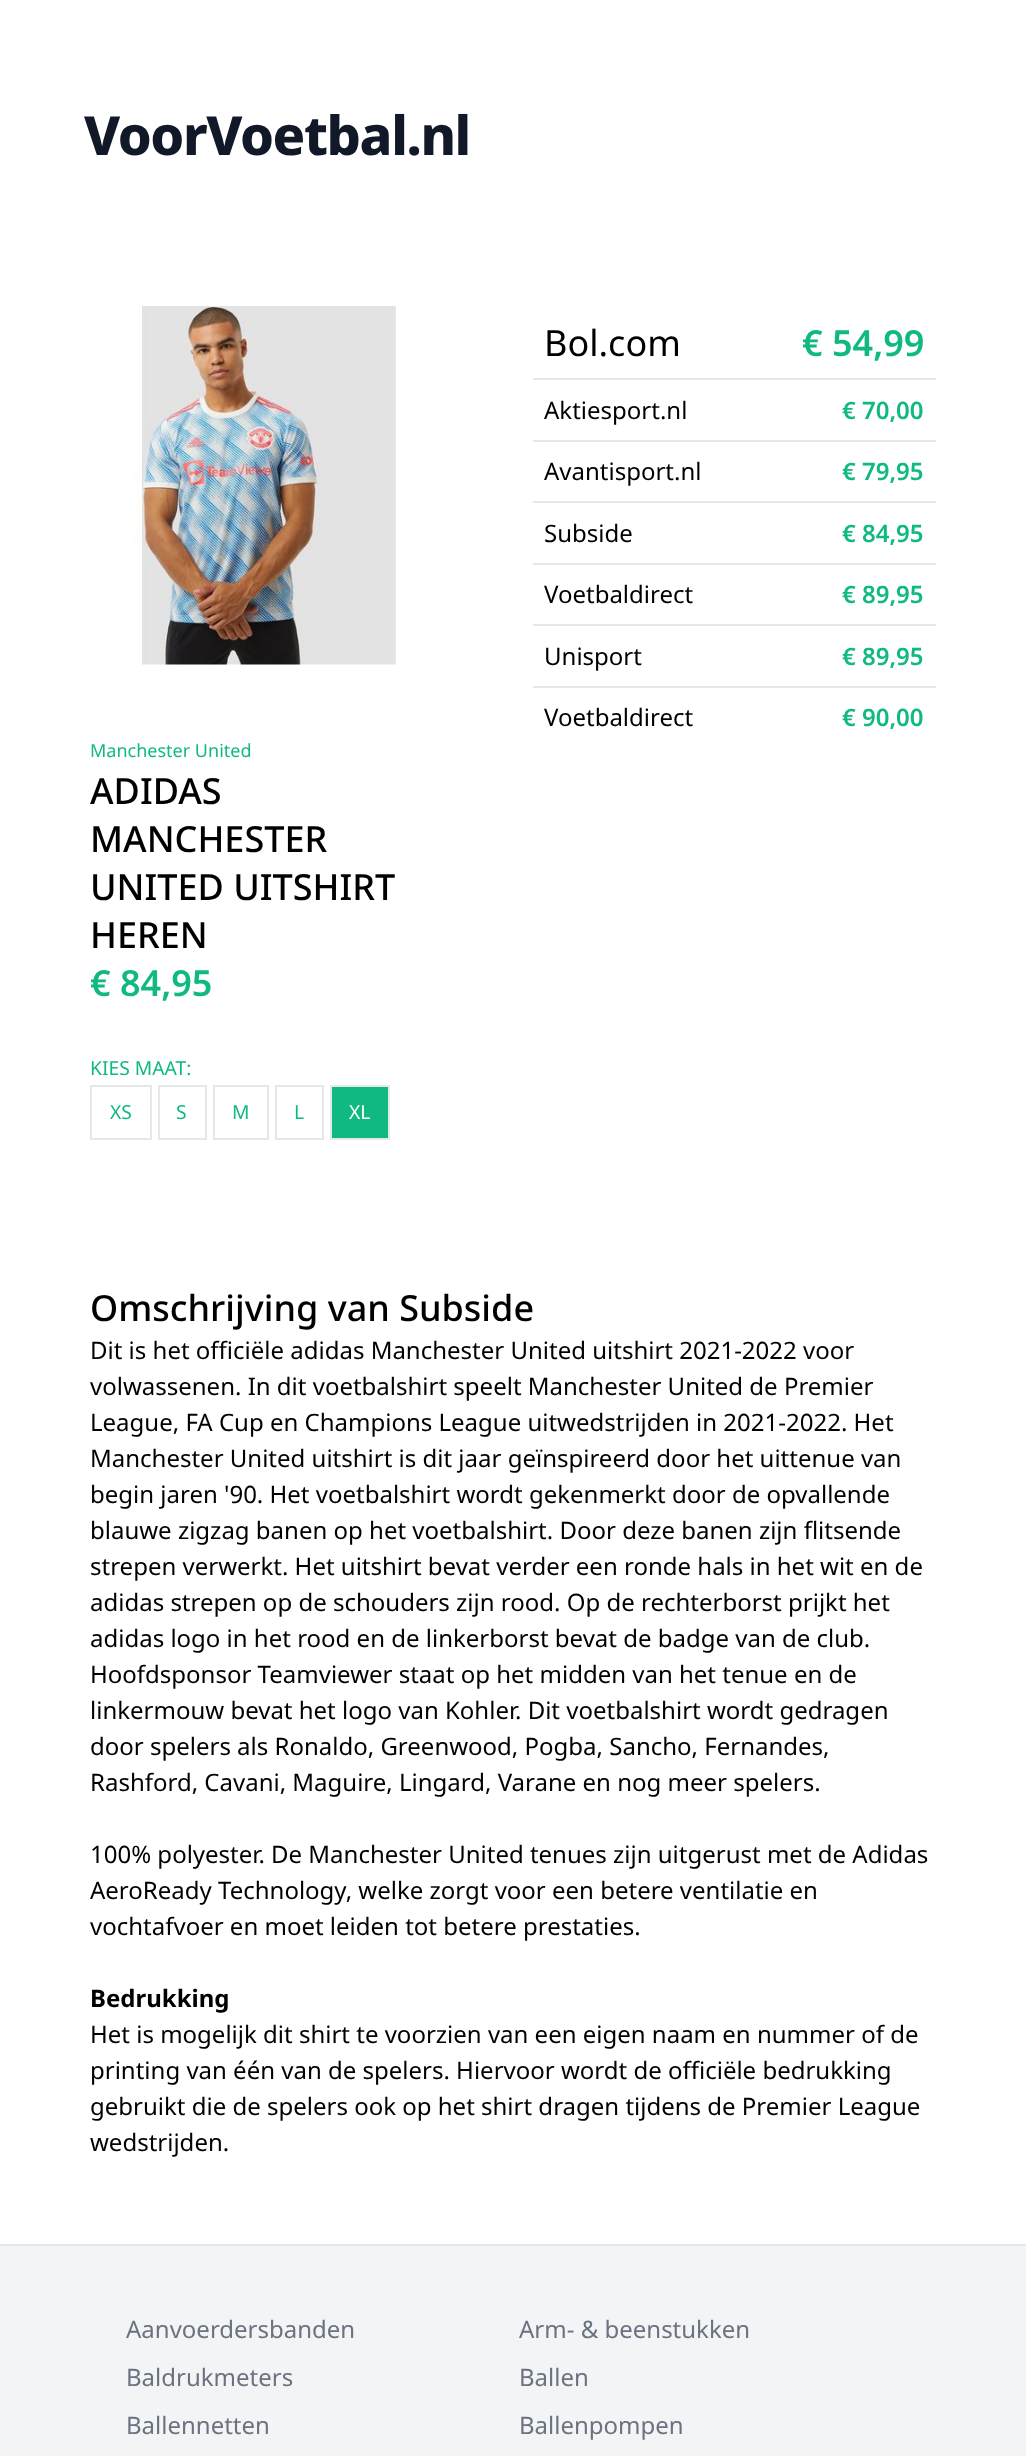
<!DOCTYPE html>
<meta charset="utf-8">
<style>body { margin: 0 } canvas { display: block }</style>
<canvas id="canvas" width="1026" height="2456"></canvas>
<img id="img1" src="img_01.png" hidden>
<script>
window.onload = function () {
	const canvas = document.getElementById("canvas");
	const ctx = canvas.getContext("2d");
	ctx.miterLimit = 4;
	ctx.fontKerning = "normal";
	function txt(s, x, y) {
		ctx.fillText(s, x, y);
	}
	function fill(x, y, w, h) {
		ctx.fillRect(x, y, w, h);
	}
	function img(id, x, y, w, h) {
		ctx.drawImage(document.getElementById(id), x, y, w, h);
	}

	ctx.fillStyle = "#FFFFFF";
	fill(0, 0, 1026, 2456);
	ctx.fillStyle = "#E5E7EB";
	fill(533, 378, 403, 2);
	fill(533, 440, 403, 2);
	fill(533, 501, 403, 2);
	fill(533, 563, 403, 2);
	fill(533, 624, 403, 2);
	fill(533, 686, 403, 2);
	img("img1", 133, 306, 263, 359);
	ctx.strokeStyle = "#E5E7EB";
	ctx.lineWidth = 2;
	ctx.strokeRect(91, 1086, 60, 53);
	ctx.strokeRect(159, 1086, 47, 53);
	ctx.strokeRect(214, 1086, 54, 53);
	ctx.strokeRect(276, 1086, 47, 53);
	ctx.fillStyle = "#10B981";
	ctx.beginPath();
	ctx.rect(331, 1086, 58, 53);
	ctx.fill();
	ctx.stroke();
	ctx.fillStyle = "#F3F4F6";
	fill(0, 2246, 1026, 210);
	ctx.fillStyle = "#E5E7EB";
	fill(0, 2244, 1026, 2);
	ctx.letterSpacing = "-1.4px";
	ctx.font = "800 54px Noto Sans";
	ctx.fillStyle = "#111827";
	txt("VoorVoetbal.nl", 84, 155);
	ctx.letterSpacing = "0px";
	ctx.font = "36px Noto Sans";
	ctx.fillStyle = "#000000";
	txt("Bol.com", 544, 356);
	ctx.font = "600 36px Noto Sans";
	ctx.fillStyle = "#10B981";
	txt("€ 54,99", 802, 356);
	ctx.font = "24px Noto Sans";
	ctx.fillStyle = "#000000";
	txt("Aktiesport.nl", 544, 419);
	ctx.font = "600 24px Noto Sans";
	ctx.fillStyle = "#10B981";
	txt("€ 70,00", 842, 419);
	ctx.font = "24px Noto Sans";
	ctx.fillStyle = "#000000";
	txt("Avantisport.nl", 544, 480);
	ctx.font = "600 24px Noto Sans";
	ctx.fillStyle = "#10B981";
	txt("€ 79,95", 842, 480);
	ctx.font = "24px Noto Sans";
	ctx.fillStyle = "#000000";
	txt("Subside", 544, 542);
	ctx.font = "600 24px Noto Sans";
	ctx.fillStyle = "#10B981";
	txt("€ 84,95", 842, 542);
	ctx.font = "24px Noto Sans";
	ctx.fillStyle = "#000000";
	txt("Voetbaldirect", 544, 603);
	ctx.font = "600 24px Noto Sans";
	ctx.fillStyle = "#10B981";
	txt("€ 89,95", 842, 603);
	ctx.font = "24px Noto Sans";
	ctx.fillStyle = "#000000";
	txt("Unisport", 544, 665);
	ctx.font = "600 24px Noto Sans";
	ctx.fillStyle = "#10B981";
	txt("€ 89,95", 842, 665);
	ctx.font = "24px Noto Sans";
	ctx.fillStyle = "#000000";
	txt("Voetbaldirect", 544, 726);
	ctx.font = "600 24px Noto Sans";
	ctx.fillStyle = "#10B981";
	txt("€ 90,00", 842, 726);
	ctx.font = "18px Noto Sans";
	txt("Manchester United", 90, 757);
	ctx.font = "500 36px Noto Sans";
	ctx.fillStyle = "#000000";
	txt("ADIDAS", 90, 804);
	txt("MANCHESTER", 90, 852);
	txt("UNITED UITSHIRT", 90, 900);
	txt("HEREN", 90, 948);
	ctx.font = "600 36px Noto Sans";
	ctx.fillStyle = "#10B981";
	txt("€ 84,95", 90, 996);
	ctx.font = "19.25px Noto Sans";
	txt("KIES MAAT:", 90, 1075);
	txt("XS", 110, 1119);
	txt("S", 176, 1119);
	txt("M", 232, 1119);
	txt("L", 294, 1119);
	ctx.fillStyle = "#FFFFFF";
	txt("XL", 349, 1119);
	ctx.font = "500 36px Noto Sans";
	ctx.fillStyle = "#000000";
	txt("Omschrijving van Subside", 90, 1321);
	ctx.font = "24px Noto Sans";
	txt("Dit is het officiële adidas Manchester United uitshirt 2021-2022 voor", 90, 1359);
	txt("volwassenen. In dit voetbalshirt speelt Manchester United de Premier", 90, 1395);
	txt("League, FA Cup en Champions League uitwedstrijden in 2021-2022. Het", 90, 1431);
	txt("Manchester United uitshirt is dit jaar geïnspireerd door het uittenue van", 90, 1467);
	txt("begin jaren '90. Het voetbalshirt wordt gekenmerkt door de opvallende", 90, 1503);
	txt("blauwe zigzag banen op het voetbalshirt. Door deze banen zijn flitsende", 90, 1539);
	txt("strepen verwerkt. Het uitshirt bevat verder een ronde hals in het wit en de", 90, 1575);
	txt("adidas strepen op de schouders zijn rood. Op de rechterborst prijkt het", 90, 1611);
	txt("adidas logo in het rood en de linkerborst bevat de badge van de club.", 90, 1647);
	txt("Hoofdsponsor Teamviewer staat op het midden van het tenue en de", 90, 1683);
	txt("linkermouw bevat het logo van Kohler. Dit voetbalshirt wordt gedragen", 90, 1719);
	txt("door spelers als Ronaldo, Greenwood, Pogba, Sancho, Fernandes,", 90, 1755);
	txt("Rashford, Cavani, Maguire, Lingard, Varane en nog meer spelers.", 90, 1791);
	txt("100% polyester. De Manchester United tenues zijn uitgerust met de Adidas", 90, 1863);
	txt("AeroReady Technology, welke zorgt voor een betere ventilatie en", 90, 1899);
	txt("vochtafvoer en moet leiden tot betere prestaties.", 90, 1935);
	ctx.font = "bold 24px Noto Sans";
	txt("Bedrukking", 90, 2007);
	ctx.font = "24px Noto Sans";
	txt("Het is mogelijk dit shirt te voorzien van een eigen naam en nummer of de", 90, 2043);
	txt("printing van één van de spelers. Hiervoor wordt de officiële bedrukking", 90, 2079);
	txt("gebruikt die de spelers ook op het shirt dragen tijdens de Premier League", 90, 2115);
	txt("wedstrijden.", 90, 2151);
	ctx.fillStyle = "#6B7280";
	txt("Aanvoerdersbanden", 126, 2338);
	txt("Arm- & beenstukken", 519, 2338);
	txt("Baldrukmeters", 126, 2386);
	txt("Ballen", 519, 2386);
	txt("Ballennetten", 126, 2434);
	txt("Ballenpompen", 519, 2434);
};
</script>
